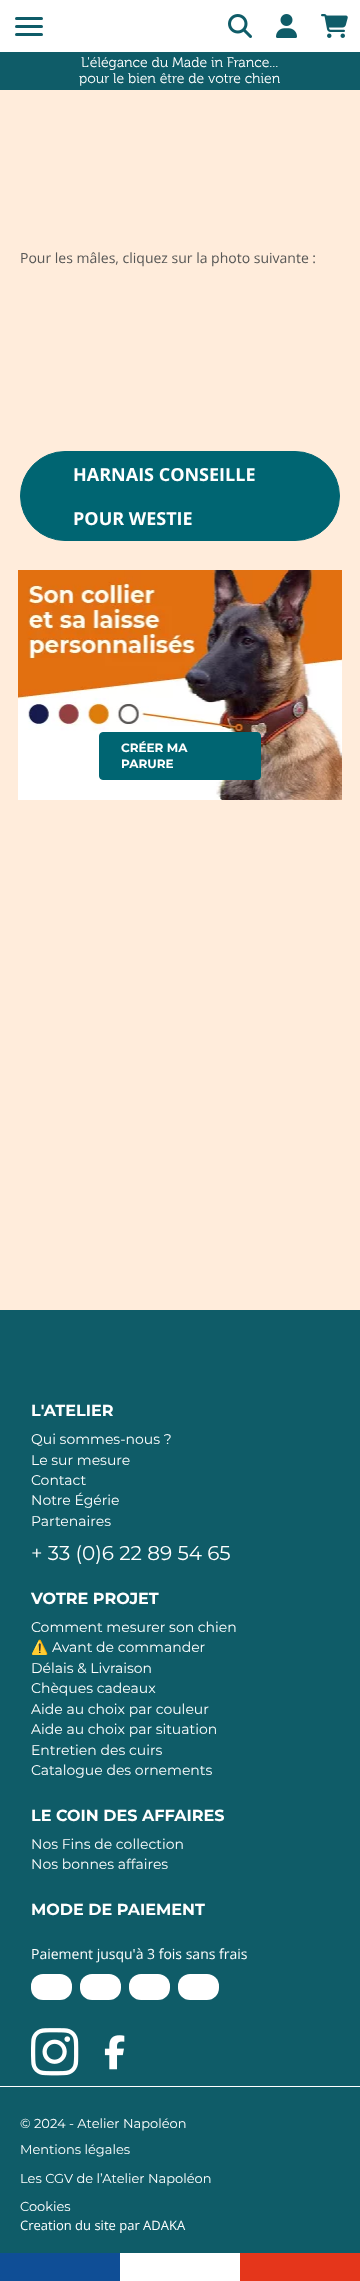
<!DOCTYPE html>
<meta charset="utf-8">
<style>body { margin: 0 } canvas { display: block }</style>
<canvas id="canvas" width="360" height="2281"></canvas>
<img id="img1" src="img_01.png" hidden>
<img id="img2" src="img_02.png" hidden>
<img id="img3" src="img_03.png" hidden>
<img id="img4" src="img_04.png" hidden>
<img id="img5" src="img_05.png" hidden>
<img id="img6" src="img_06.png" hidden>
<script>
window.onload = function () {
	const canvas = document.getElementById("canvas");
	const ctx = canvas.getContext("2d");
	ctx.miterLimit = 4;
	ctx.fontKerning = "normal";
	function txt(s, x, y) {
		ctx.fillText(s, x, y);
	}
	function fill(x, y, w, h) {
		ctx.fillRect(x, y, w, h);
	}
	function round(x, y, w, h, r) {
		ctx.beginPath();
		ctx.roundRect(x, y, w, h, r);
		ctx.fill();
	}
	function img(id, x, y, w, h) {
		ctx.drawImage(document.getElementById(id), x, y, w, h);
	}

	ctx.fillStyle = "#FFECDB";
	fill(0, 0, 360, 2281);
	ctx.fillStyle = "#FFFFFF";
	fill(0, 0, 360, 52);
	ctx.fillStyle = "#0F5C68";
	round(15, 17, 28, 3, 1.5);
	round(15, 25, 28, 3, 1.5);
	round(15, 33, 28, 3, 1.5);
	img("img1", 228, 14, 24, 24);
	img("img2", 276, 14, 21, 24);
	img("img3", 321, 14, 27, 24);
	fill(0, 52, 360, 38);
	ctx.fillStyle = "#006572";
	ctx.beginPath();
	ctx.roundRect(20.5, 451.5, 319, 89, 44.5);
	ctx.fill();
	ctx.strokeStyle = "#006572";
	ctx.stroke();
	img("img4", 18, 570, 324, 230);
	ctx.beginPath();
	ctx.roundRect(99.5, 732.5, 161, 47, 3.5);
	ctx.fill();
	ctx.stroke();
	ctx.fillStyle = "#0F5C68";
	fill(0, 1310, 360, 943);
	ctx.fillStyle = "#FFFFFF";
	round(31, 1974, 41, 26, 12);
	round(80, 1974, 41, 26, 12);
	round(129, 1974, 41, 26, 12);
	round(178, 1974, 41, 26, 12);
	img("img5", 31, 2028, 48, 48);
	img("img6", 104, 2035, 21, 35);
	fill(0, 2086, 360, 1);
	ctx.fillStyle = "#0F4E96";
	fill(0, 2253, 120, 28);
	ctx.fillStyle = "#FFFFFF";
	fill(120, 2253, 120, 28);
	ctx.fillStyle = "#E5361B";
	fill(240, 2253, 120, 28);
	ctx.font = "300 14px 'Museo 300'";
	ctx.fillStyle = "#FFFFFF";
	txt("L'élégance du Made in France...", 81, 67);
	txt("pour le bien être de votre chien", 79, 83);
	ctx.font = "14px Open Sans";
	ctx.fillStyle = "#575756";
	txt("Pour les mâles, cliquez sur la photo suivante :", 20, 263);
	ctx.font = "bold 18px Open Sans";
	ctx.fillStyle = "#FFFFFF";
	txt("HARNAIS CONSEILLE", 73, 481);
	txt("POUR WESTIE", 73, 525);
	ctx.font = "bold 12px Montserrat";
	txt("CRÉER MA", 121, 752);
	txt("PARURE", 121, 768);
	ctx.font = "bold 16px Montserrat";
	txt("L'ATELIER", 31, 1416);
	ctx.font = "14px Montserrat";
	txt("Qui sommes-nous ?", 31, 1444);
	txt("Le sur mesure", 31, 1465);
	txt("Contact", 31, 1485);
	txt("Notre Égérie", 31, 1505);
	txt("Partenaires", 31, 1526);
	ctx.font = "20px Montserrat";
	txt("+ 33 (0)6 22 89 54 65", 31, 1560);
	ctx.font = "bold 16px Montserrat";
	txt("VOTRE PROJET", 31, 1604);
	ctx.font = "14px Montserrat";
	txt("Comment mesurer son chien", 31, 1632);
	ctx.font = "14px Noto Color Emoji";
	txt("⚠️", 31, 1652);
	ctx.font = "14px Montserrat";
	txt("Avant de commander", 52, 1652);
	txt("Délais & Livraison", 31, 1673);
	txt("Chèques cadeaux", 31, 1693);
	txt("Aide au choix par couleur", 31, 1714);
	txt("Aide au choix par situation", 31, 1734);
	txt("Entretien des cuirs", 31, 1755);
	txt("Catalogue des ornements", 31, 1775);
	ctx.font = "bold 16px Montserrat";
	txt("LE COIN DES AFFAIRES", 31, 1821);
	ctx.font = "14px Montserrat";
	txt("Nos Fins de collection", 31, 1849);
	txt("Nos bonnes affaires", 31, 1869);
	ctx.font = "bold 16px Montserrat";
	txt("MODE DE PAIEMENT", 31, 1915);
	ctx.font = "14px Open Sans";
	txt("Paiement jusqu'à 3 fois sans frais", 31, 1959);
	ctx.font = "13px Montserrat";
	txt("© 2024 - Atelier Napoléon", 20, 2128);
	txt("Mentions légales", 20, 2154);
	txt("Les CGV de l’Atelier Napoléon", 20, 2183);
	txt("Cookies", 20, 2211);
	ctx.font = "13px Open Sans";
	txt("Creation du site par ADAKA", 20, 2230);
};
</script>
